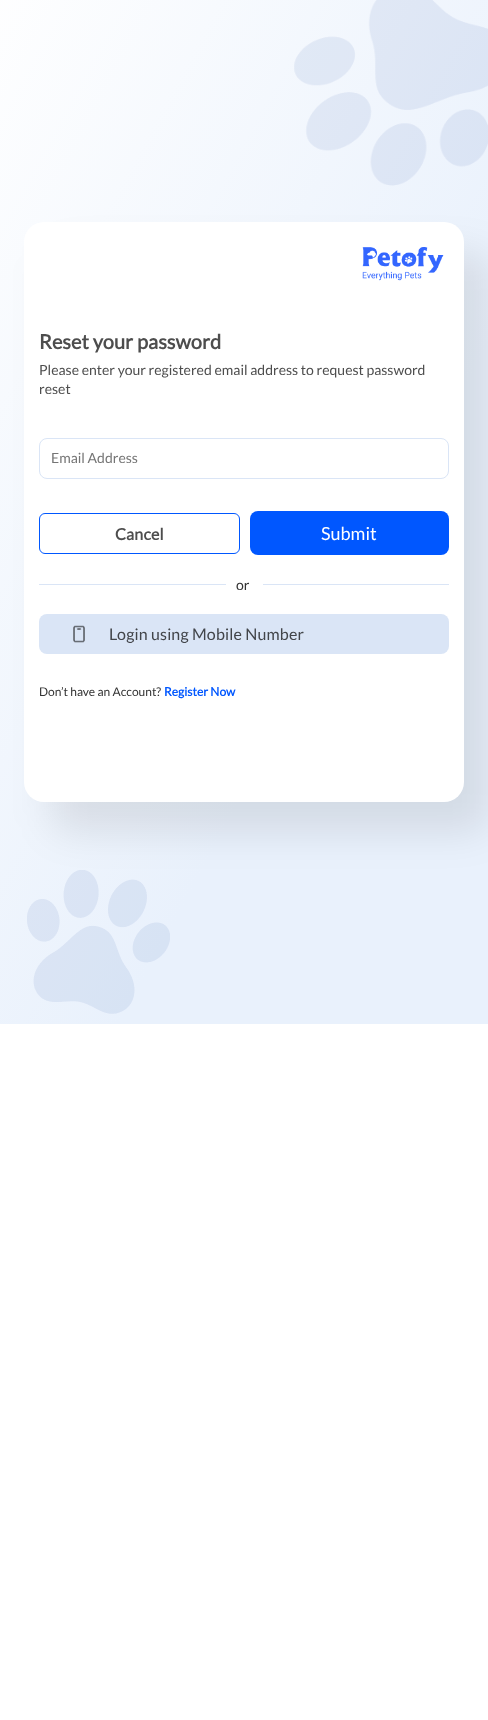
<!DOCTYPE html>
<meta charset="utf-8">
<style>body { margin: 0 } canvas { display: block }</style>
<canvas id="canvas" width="488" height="1720"></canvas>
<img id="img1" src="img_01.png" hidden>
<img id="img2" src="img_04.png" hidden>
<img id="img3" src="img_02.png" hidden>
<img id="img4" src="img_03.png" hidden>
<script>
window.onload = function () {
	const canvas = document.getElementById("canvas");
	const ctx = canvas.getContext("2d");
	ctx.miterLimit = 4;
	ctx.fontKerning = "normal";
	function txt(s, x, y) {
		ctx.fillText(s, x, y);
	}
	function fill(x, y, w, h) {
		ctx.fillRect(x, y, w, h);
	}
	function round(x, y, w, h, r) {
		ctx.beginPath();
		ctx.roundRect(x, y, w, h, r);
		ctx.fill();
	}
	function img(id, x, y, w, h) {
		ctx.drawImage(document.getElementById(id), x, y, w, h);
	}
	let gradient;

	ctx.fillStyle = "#FFFFFF";
	fill(0, 0, 488, 1720);
	gradient = ctx.createLinearGradient(-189, 277, 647, 731);
	gradient.addColorStop(0, "#FFFFFF");
	gradient.addColorStop(0.66, "#E9F1FC");
	ctx.fillStyle = gradient;
	fill(0, 0, 488, 1024);
	img("img1", 294, 0, 194, 186);
	img("img2", 27, 870, 143, 144);
	ctx.fillStyle = "rgba(0, 0, 0, 0.09)";
	ctx.filter = "blur(19.5px)";
	ctx.beginPath();
	ctx.roundRect(50, 252, 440, 580, 20);
	ctx.fill();
	ctx.filter = "none";
	ctx.fillStyle = "#FFFFFF";
	round(24, 222, 440, 580, 20);
	img("img3", 362, 247, 82, 34);
	ctx.beginPath();
	ctx.roundRect(39.5, 438.5, 409, 40, 7.5);
	ctx.strokeStyle = "#DAE5F6";
	ctx.stroke();
	ctx.beginPath();
	ctx.roundRect(39.5, 513.5, 200, 40, 5.5);
	ctx.strokeStyle = "#0057FF";
	ctx.stroke();
	ctx.fillStyle = "#0057FF";
	round(250, 511, 199, 44, 8);
	ctx.fillStyle = "#DAE5F6";
	fill(39, 584, 410, 1);
	ctx.fillStyle = "#FFFFFF";
	fill(226, 584, 37, 1);
	ctx.fillStyle = "#DAE5F6";
	round(39, 614, 410, 40, 8);
	img("img4", 73, 625, 12, 18);
	ctx.font = "bold 20px Lato";
	ctx.fillStyle = "#4D4D4D";
	txt("Reset your password", 39, 349);
	ctx.font = "14px Lato";
	txt("Please enter your registered email address to request password", 39, 375);
	txt("reset", 39, 394);
	ctx.fillStyle = "#757575";
	txt("Email Address", 51, 463);
	ctx.letterSpacing = "0.15px";
	ctx.font = "bold 16px Lato";
	ctx.fillStyle = "#4D4D4D";
	txt("Cancel", 115, 540);
	ctx.letterSpacing = "0px";
	ctx.font = "18px Lato";
	ctx.fillStyle = "#FFFFFF";
	txt("Submit", 321, 540);
	ctx.font = "14px Lato";
	ctx.fillStyle = "#333333";
	txt("or", 236, 590);
	ctx.letterSpacing = "0.15px";
	ctx.font = "16px Lato";
	ctx.fillStyle = "#42454A";
	txt("Login using Mobile Number", 109, 640);
	ctx.letterSpacing = "0px";
	ctx.font = "12px Lato";
	ctx.fillStyle = "#333333";
	txt("Don’t have an Account?", 39, 696);
	ctx.font = "bold 12px Lato";
	ctx.fillStyle = "#0057FF";
	txt("Register Now", 164, 696);
};
</script>
